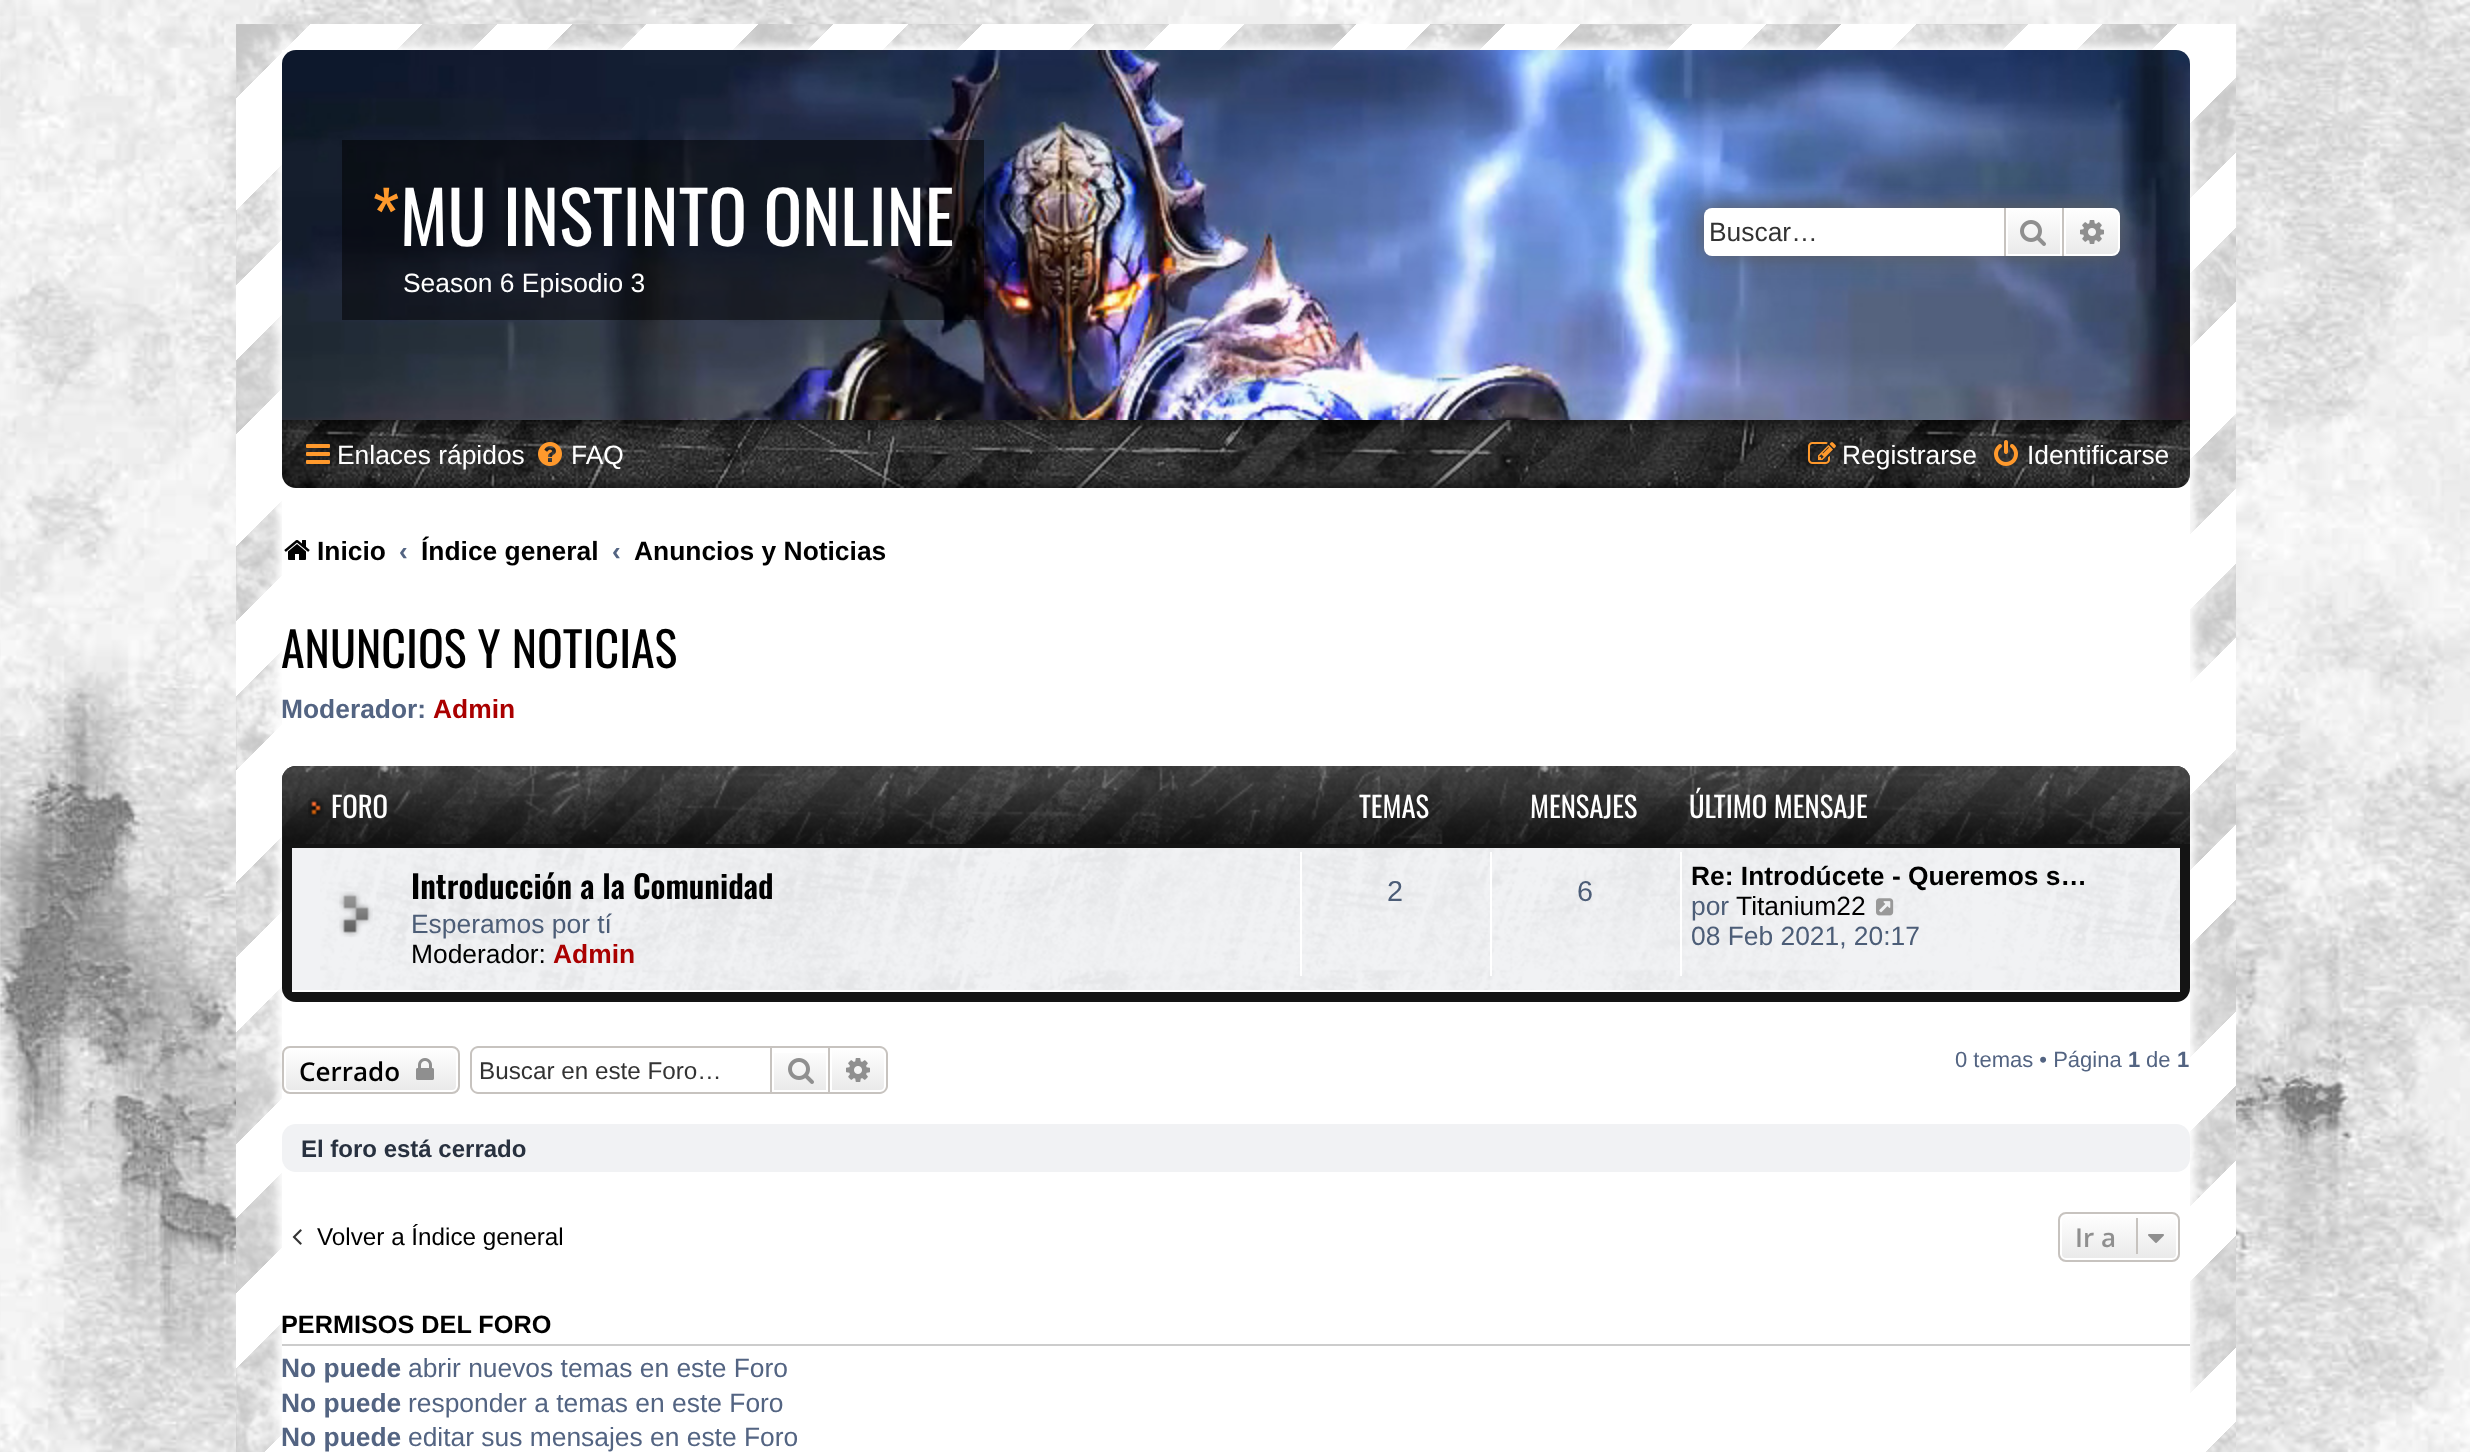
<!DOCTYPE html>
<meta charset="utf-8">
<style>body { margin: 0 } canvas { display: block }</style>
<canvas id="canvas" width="2470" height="1452"></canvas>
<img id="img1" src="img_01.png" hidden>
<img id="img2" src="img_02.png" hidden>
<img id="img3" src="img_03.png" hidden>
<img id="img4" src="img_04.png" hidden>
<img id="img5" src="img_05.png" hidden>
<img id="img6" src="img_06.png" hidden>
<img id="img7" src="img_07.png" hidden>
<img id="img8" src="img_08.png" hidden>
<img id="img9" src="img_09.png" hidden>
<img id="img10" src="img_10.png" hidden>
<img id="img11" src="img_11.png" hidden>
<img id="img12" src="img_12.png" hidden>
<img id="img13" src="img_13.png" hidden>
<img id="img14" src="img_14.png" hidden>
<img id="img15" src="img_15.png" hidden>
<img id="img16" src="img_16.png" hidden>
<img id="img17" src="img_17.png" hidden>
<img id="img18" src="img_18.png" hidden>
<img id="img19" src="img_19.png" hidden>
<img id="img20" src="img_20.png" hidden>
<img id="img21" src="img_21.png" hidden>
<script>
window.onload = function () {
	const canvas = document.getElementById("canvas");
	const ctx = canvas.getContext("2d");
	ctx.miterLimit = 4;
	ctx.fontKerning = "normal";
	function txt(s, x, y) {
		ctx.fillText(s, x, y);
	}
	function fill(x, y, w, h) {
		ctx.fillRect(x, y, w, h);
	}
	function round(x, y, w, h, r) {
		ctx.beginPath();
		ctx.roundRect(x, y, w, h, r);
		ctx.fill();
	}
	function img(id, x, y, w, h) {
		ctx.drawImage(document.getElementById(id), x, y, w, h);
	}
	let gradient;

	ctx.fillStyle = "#FFFFFF";
	fill(0, 0, 2470, 1452);
	img("img1", 0, 0, 2470, 1452);
	gradient = ctx.createLinearGradient(328, -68, 2195, 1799);
	gradient.addColorStop(0, "#C5C5C5");
	gradient.addColorStop(0.02, "#C5C5C5");
	gradient.addColorStop(0.02, "#FFFFFF");
	gradient.addColorStop(0.05, "#FFFFFF");
	gradient.addColorStop(0.05, "#C5C5C5");
	gradient.addColorStop(0.07, "#C5C5C5");
	gradient.addColorStop(0.07, "#FFFFFF");
	gradient.addColorStop(0.09, "#FFFFFF");
	gradient.addColorStop(0.09, "#C5C5C5");
	gradient.addColorStop(0.11, "#C5C5C5");
	gradient.addColorStop(0.11, "#FFFFFF");
	gradient.addColorStop(0.14, "#FFFFFF");
	gradient.addColorStop(0.14, "#C5C5C5");
	gradient.addColorStop(0.16, "#C5C5C5");
	gradient.addColorStop(0.16, "#FFFFFF");
	gradient.addColorStop(0.18, "#FFFFFF");
	gradient.addColorStop(0.18, "#C5C5C5");
	gradient.addColorStop(0.2, "#C5C5C5");
	gradient.addColorStop(0.2, "#FFFFFF");
	gradient.addColorStop(0.23, "#FFFFFF");
	gradient.addColorStop(0.23, "#C5C5C5");
	gradient.addColorStop(0.25, "#C5C5C5");
	gradient.addColorStop(0.25, "#FFFFFF");
	gradient.addColorStop(0.27, "#FFFFFF");
	gradient.addColorStop(0.27, "#C5C5C5");
	gradient.addColorStop(0.3, "#C5C5C5");
	gradient.addColorStop(0.3, "#FFFFFF");
	gradient.addColorStop(0.32, "#FFFFFF");
	gradient.addColorStop(0.32, "#C5C5C5");
	gradient.addColorStop(0.34, "#C5C5C5");
	gradient.addColorStop(0.34, "#FFFFFF");
	gradient.addColorStop(0.36, "#FFFFFF");
	gradient.addColorStop(0.36, "#C5C5C5");
	gradient.addColorStop(0.39, "#C5C5C5");
	gradient.addColorStop(0.39, "#FFFFFF");
	gradient.addColorStop(0.41, "#FFFFFF");
	gradient.addColorStop(0.41, "#C5C5C5");
	gradient.addColorStop(0.43, "#C5C5C5");
	gradient.addColorStop(0.43, "#FFFFFF");
	gradient.addColorStop(0.45, "#FFFFFF");
	gradient.addColorStop(0.45, "#C5C5C5");
	gradient.addColorStop(0.48, "#C5C5C5");
	gradient.addColorStop(0.48, "#FFFFFF");
	gradient.addColorStop(0.5, "#FFFFFF");
	gradient.addColorStop(0.5, "#C5C5C5");
	gradient.addColorStop(0.52, "#C5C5C5");
	gradient.addColorStop(0.52, "#FFFFFF");
	gradient.addColorStop(0.55, "#FFFFFF");
	gradient.addColorStop(0.55, "#C5C5C5");
	gradient.addColorStop(0.57, "#C5C5C5");
	gradient.addColorStop(0.57, "#FFFFFF");
	gradient.addColorStop(0.59, "#FFFFFF");
	gradient.addColorStop(0.59, "#C5C5C5");
	gradient.addColorStop(0.61, "#C5C5C5");
	gradient.addColorStop(0.61, "#FFFFFF");
	gradient.addColorStop(0.64, "#FFFFFF");
	gradient.addColorStop(0.64, "#C5C5C5");
	gradient.addColorStop(0.66, "#C5C5C5");
	gradient.addColorStop(0.66, "#FFFFFF");
	gradient.addColorStop(0.68, "#FFFFFF");
	gradient.addColorStop(0.68, "#C5C5C5");
	gradient.addColorStop(0.7, "#C5C5C5");
	gradient.addColorStop(0.7, "#FFFFFF");
	gradient.addColorStop(0.73, "#FFFFFF");
	gradient.addColorStop(0.73, "#C5C5C5");
	gradient.addColorStop(0.75, "#C5C5C5");
	gradient.addColorStop(0.75, "#FFFFFF");
	gradient.addColorStop(0.77, "#FFFFFF");
	gradient.addColorStop(0.77, "#C5C5C5");
	gradient.addColorStop(0.8, "#C5C5C5");
	gradient.addColorStop(0.8, "#FFFFFF");
	gradient.addColorStop(0.82, "#FFFFFF");
	gradient.addColorStop(0.82, "#C5C5C5");
	gradient.addColorStop(0.84, "#C5C5C5");
	gradient.addColorStop(0.84, "#FFFFFF");
	gradient.addColorStop(0.86, "#FFFFFF");
	gradient.addColorStop(0.86, "#C5C5C5");
	gradient.addColorStop(0.89, "#C5C5C5");
	gradient.addColorStop(0.89, "#FFFFFF");
	gradient.addColorStop(0.91, "#FFFFFF");
	gradient.addColorStop(0.91, "#C5C5C5");
	gradient.addColorStop(0.93, "#C5C5C5");
	gradient.addColorStop(0.93, "#FFFFFF");
	gradient.addColorStop(0.95, "#FFFFFF");
	gradient.addColorStop(0.95, "#C5C5C5");
	gradient.addColorStop(0.98, "#C5C5C5");
	gradient.addColorStop(0.98, "#FFFFFF");
	gradient.addColorStop(1, "#FFFFFF");
	ctx.fillStyle = gradient;
	fill(236, 24, 2000, 1428);
	img("img2", 236, 24, 2000, 1428);
	ctx.fillStyle = "#FFFFFF";
	ctx.filter = "blur(5px)";
	ctx.beginPath();
	ctx.rect(278, 46, 1916, 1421);
	ctx.fill();
	ctx.filter = "none";
	fill(282, 50, 1908, 1384);
	img("img3", 282, 50, 1908, 370);
	ctx.fillStyle = "rgba(0, 0, 0, 0.5)";
	fill(342, 140, 642, 180);
	ctx.fillStyle = "#5B5B5B";
	ctx.filter = "blur(10px)";
	ctx.beginPath();
	ctx.roundRect(1704, 208, 416, 48, 8);
	ctx.fill();
	ctx.filter = "none";
	ctx.fillStyle = "#FFFFFF";
	ctx.beginPath();
	ctx.roundRect(1704, 208, 300, 48, [8, 0, 0, 8]);
	ctx.fill();
	gradient = ctx.createLinearGradient(2034, 208, 2034, 256);
	gradient.addColorStop(0, "#FFFFFF");
	gradient.addColorStop(1, "#E9E9E9");
	ctx.fillStyle = gradient;
	fill(2008, 210, 52, 44);
	ctx.strokeStyle = "#FFFFFF";
	ctx.lineWidth = 2;
	ctx.strokeRect(2007, 209, 54, 46);
	ctx.fillStyle = "#C7C3BF";
	fill(2062, 208, 2, 48);
	fill(2004, 208, 2, 48);
	img("img4", 2020, 220, 26, 26);
	gradient = ctx.createLinearGradient(2092, 208, 2092, 256);
	gradient.addColorStop(0, "#FFFFFF");
	gradient.addColorStop(1, "#E9E9E9");
	ctx.fillStyle = gradient;
	ctx.beginPath();
	ctx.roundRect(2065, 209, 54, 46, [0, 7, 7, 0]);
	ctx.fill();
	ctx.stroke();
	img("img5", 2080, 220, 24, 24);
	img("img6", 282, 420, 1908, 68);
	img("img7", 306, 444, 24, 20);
	img("img8", 538, 442, 24, 24);
	img("img9", 1808, 442, 28, 22);
	img("img10", 1994, 440, 24, 26);
	img("img11", 284, 540, 26, 20);
	ctx.fillStyle = "#141414";
	round(282, 766, 1908, 236, 14);
	img("img12", 282, 766, 1908, 78);
	img("img13", 308, 798, 16, 20);
	ctx.fillStyle = "#F1F2F4";
	fill(292, 848, 1888, 142);
	img("img14", 320, 848, 1860, 142);
	ctx.fillStyle = "#FFFFFF";
	fill(292, 990, 1888, 2);
	img("img15", 339, 891, 34, 46);
	fill(1300, 852, 2, 124);
	fill(1490, 852, 2, 124);
	fill(1680, 852, 2, 124);
	img("img16", 1876, 898, 18, 18);
	ctx.save();
	ctx.beginPath();
	ctx.roundRect(282, 1046, 178, 48, 8);
	ctx.clip();
	gradient = ctx.createLinearGradient(371, 1048, 371, 1092);
	gradient.addColorStop(0, "#FFFFFF");
	gradient.addColorStop(1, "#E9E9E9");
	ctx.fillStyle = gradient;
	fill(282, 1048, 178, 44);
	ctx.restore();
	ctx.beginPath();
	ctx.roundRect(285, 1049, 172, 42, 5);
	ctx.stroke();
	ctx.beginPath();
	ctx.roundRect(283, 1047, 176, 46, 7);
	ctx.strokeStyle = "#C7C3BF";
	ctx.stroke();
	img("img17", 416, 1058, 18, 22);
	ctx.fillStyle = "#C7C3BF";
	ctx.beginPath();
	ctx.moveTo(478, 1046);
	ctx.lineTo(770, 1046);
	ctx.lineTo(770, 1094);
	ctx.lineTo(478, 1094);
	ctx.bezierCurveTo(474, 1094, 470, 1090, 470, 1086);
	ctx.lineTo(470, 1054);
	ctx.bezierCurveTo(470, 1050, 474, 1046, 478, 1046);
	ctx.closePath();
	ctx.moveTo(478, 1048);
	ctx.lineTo(770, 1048);
	ctx.lineTo(770, 1092);
	ctx.lineTo(478, 1092);
	ctx.bezierCurveTo(475, 1092, 472, 1089, 472, 1086);
	ctx.lineTo(472, 1054);
	ctx.bezierCurveTo(472, 1051, 475, 1048, 478, 1048);
	ctx.closePath();
	ctx.fill("evenodd");
	gradient = ctx.createLinearGradient(800, 1048, 800, 1092);
	gradient.addColorStop(0, "#FFFFFF");
	gradient.addColorStop(1, "#E9E9E9");
	ctx.fillStyle = gradient;
	fill(774, 1053, 52, 37);
	ctx.strokeRect(771, 1047, 58, 46);
	img("img18", 788, 1058, 26, 26);
	gradient = ctx.createLinearGradient(858, 1048, 858, 1092);
	gradient.addColorStop(0, "#FFFFFF");
	gradient.addColorStop(1, "#E9E9E9");
	ctx.fillStyle = gradient;
	ctx.beginPath();
	ctx.roundRect(831, 1049, 54, 42, [0, 5, 5, 0]);
	ctx.fill();
	ctx.strokeStyle = "#FFFFFF";
	ctx.stroke();
	ctx.fillStyle = "#C7C3BF";
	ctx.beginPath();
	ctx.moveTo(830, 1046);
	ctx.lineTo(880, 1046);
	ctx.bezierCurveTo(884, 1046, 888, 1050, 888, 1054);
	ctx.lineTo(888, 1086);
	ctx.bezierCurveTo(888, 1090, 884, 1094, 880, 1094);
	ctx.lineTo(830, 1094);
	ctx.closePath();
	ctx.moveTo(830, 1048);
	ctx.lineTo(880, 1048);
	ctx.bezierCurveTo(883, 1048, 886, 1051, 886, 1054);
	ctx.lineTo(886, 1086);
	ctx.bezierCurveTo(886, 1089, 883, 1092, 880, 1092);
	ctx.lineTo(830, 1092);
	ctx.closePath();
	ctx.fill("evenodd");
	img("img19", 846, 1058, 24, 24);
	ctx.fillStyle = "#F1F2F4";
	round(282, 1124, 1908, 48, 14);
	img("img20", 292, 1229, 10, 16);
	ctx.save();
	ctx.beginPath();
	ctx.roundRect(2058, 1212, 122, 50, 8);
	ctx.clip();
	gradient = ctx.createLinearGradient(2119, 1214, 2119, 1260);
	gradient.addColorStop(0, "#FFFFFF");
	gradient.addColorStop(1, "#E9E9E9");
	ctx.fillStyle = gradient;
	fill(2058, 1214, 122, 46);
	ctx.restore();
	ctx.beginPath();
	ctx.roundRect(2061, 1215, 116, 44, 5);
	ctx.stroke();
	ctx.beginPath();
	ctx.roundRect(2059, 1213, 120, 48, 7);
	ctx.strokeStyle = "#C7C3BF";
	ctx.stroke();
	ctx.fillStyle = "#C7C3BF";
	fill(2136, 1218, 2, 36);
	img("img21", 2148, 1234, 16, 9);
	ctx.fillStyle = "#CCCCCC";
	fill(282, 1344, 1908, 2);
	ctx.font = "72px Oswald";
	ctx.fillStyle = "#FF992C";
	txt("*", 371, 246);
	ctx.fillStyle = "#FFFFFF";
	txt("MU INSTINTO ONLINE", 400, 246);
	ctx.font = "26.4px Liberation Sans";
	txt("Season 6 Episodio 3", 403, 292);
	ctx.fillStyle = "#333333";
	txt("Buscar…", 1709, 241);
	ctx.fillStyle = "#FFFFFF";
	txt("Enlaces rápidos", 337, 464);
	txt("FAQ", 571, 464);
	txt("Registrarse", 1842, 464);
	txt("Identificarse", 2027, 464);
	ctx.font = "bold 26.4px Liberation Sans";
	ctx.fillStyle = "#000000";
	txt("Inicio", 317, 560);
	ctx.fillStyle = "#536482";
	txt("‹", 399, 560);
	ctx.fillStyle = "#000000";
	txt("Índice general", 421, 560);
	ctx.fillStyle = "#536482";
	txt("‹", 612, 560);
	ctx.fillStyle = "#000000";
	txt("Anuncios y Noticias", 634, 560);
	ctx.font = "48px Oswald";
	txt("ANUNCIOS Y NOTICIAS", 281, 668);
	ctx.font = "bold 26.4px Liberation Sans";
	ctx.fillStyle = "#536482";
	txt("Moderador:", 281, 718);
	ctx.fillStyle = "#AA0000";
	txt("Admin", 433, 718);
	ctx.font = "28.75px Oswald";
	ctx.fillStyle = "#FFFFFF";
	txt("FORO", 331, 818);
	txt("TEMAS", 1359, 818);
	txt("MENSAJES", 1530, 818);
	txt("ÚLTIMO MENSAJE", 1689, 818);
	ctx.font = "600 31.75px Oswald";
	ctx.fillStyle = "#000000";
	txt("Introducción a la Comunidad", 411, 899);
	ctx.font = "26.4px Liberation Sans";
	ctx.fillStyle = "#4C5D77";
	txt("Esperamos por tí", 411, 933);
	ctx.fillStyle = "#000000";
	txt("Moderador:", 411, 963);
	ctx.font = "bold 26.4px Liberation Sans";
	ctx.fillStyle = "#AA0000";
	txt("Admin", 553, 963);
	ctx.font = "28.75px Liberation Sans";
	ctx.fillStyle = "#4C5D77";
	txt("2", 1387, 901);
	txt("6", 1577, 901);
	ctx.font = "bold 26.4px Liberation Sans";
	ctx.fillStyle = "#000000";
	txt("Re: Introdúcete - Queremos s…", 1691, 885);
	ctx.font = "26.4px Liberation Sans";
	ctx.fillStyle = "#4C5D77";
	txt("por", 1691, 915);
	ctx.fillStyle = "#000000";
	txt("Titanium22", 1736, 915);
	ctx.fillStyle = "#4C5D77";
	txt("08 Feb 2021, 20:17", 1691, 945);
	ctx.font = "600 26px Open Sans";
	ctx.fillStyle = "#000000";
	txt("Cerrado", 299, 1081);
	ctx.font = "24.25px Liberation Sans";
	ctx.fillStyle = "#333333";
	txt("Buscar en este Foro…", 479, 1079);
	ctx.font = "22px Liberation Sans";
	ctx.fillStyle = "#536482";
	txt("0 temas • Página", 1955, 1067);
	ctx.font = "bold 22px Liberation Sans";
	txt("1", 2128, 1067);
	ctx.font = "22px Liberation Sans";
	txt("de", 2146, 1067);
	ctx.font = "bold 22px Liberation Sans";
	txt("1", 2177, 1067);
	ctx.font = "bold 24px Liberation Sans";
	ctx.fillStyle = "#28313F";
	txt("El foro está cerrado", 301, 1157);
	ctx.font = "24.25px Liberation Sans";
	ctx.fillStyle = "#000000";
	txt("Volver a Índice general", 317, 1245);
	ctx.font = "600 26px Open Sans";
	ctx.fillStyle = "#8F8F8F";
	txt("Ir a", 2075, 1247);
	ctx.font = "bold 25.25px Liberation Sans";
	ctx.fillStyle = "#000000";
	txt("PERMISOS DEL FORO", 281, 1333);
	ctx.font = "bold 26.4px Liberation Sans";
	ctx.fillStyle = "#536482";
	txt("No puede", 281, 1377);
	ctx.font = "26.4px Liberation Sans";
	txt("abrir nuevos temas en este Foro", 408, 1377);
	ctx.font = "bold 26.4px Liberation Sans";
	txt("No puede", 281, 1412);
	ctx.font = "26.4px Liberation Sans";
	txt("responder a temas en este Foro", 408, 1412);
	ctx.font = "bold 26.4px Liberation Sans";
	txt("No puede", 281, 1446);
	ctx.font = "26.4px Liberation Sans";
	txt("editar sus mensajes en este Foro", 408, 1446);
};
</script>
